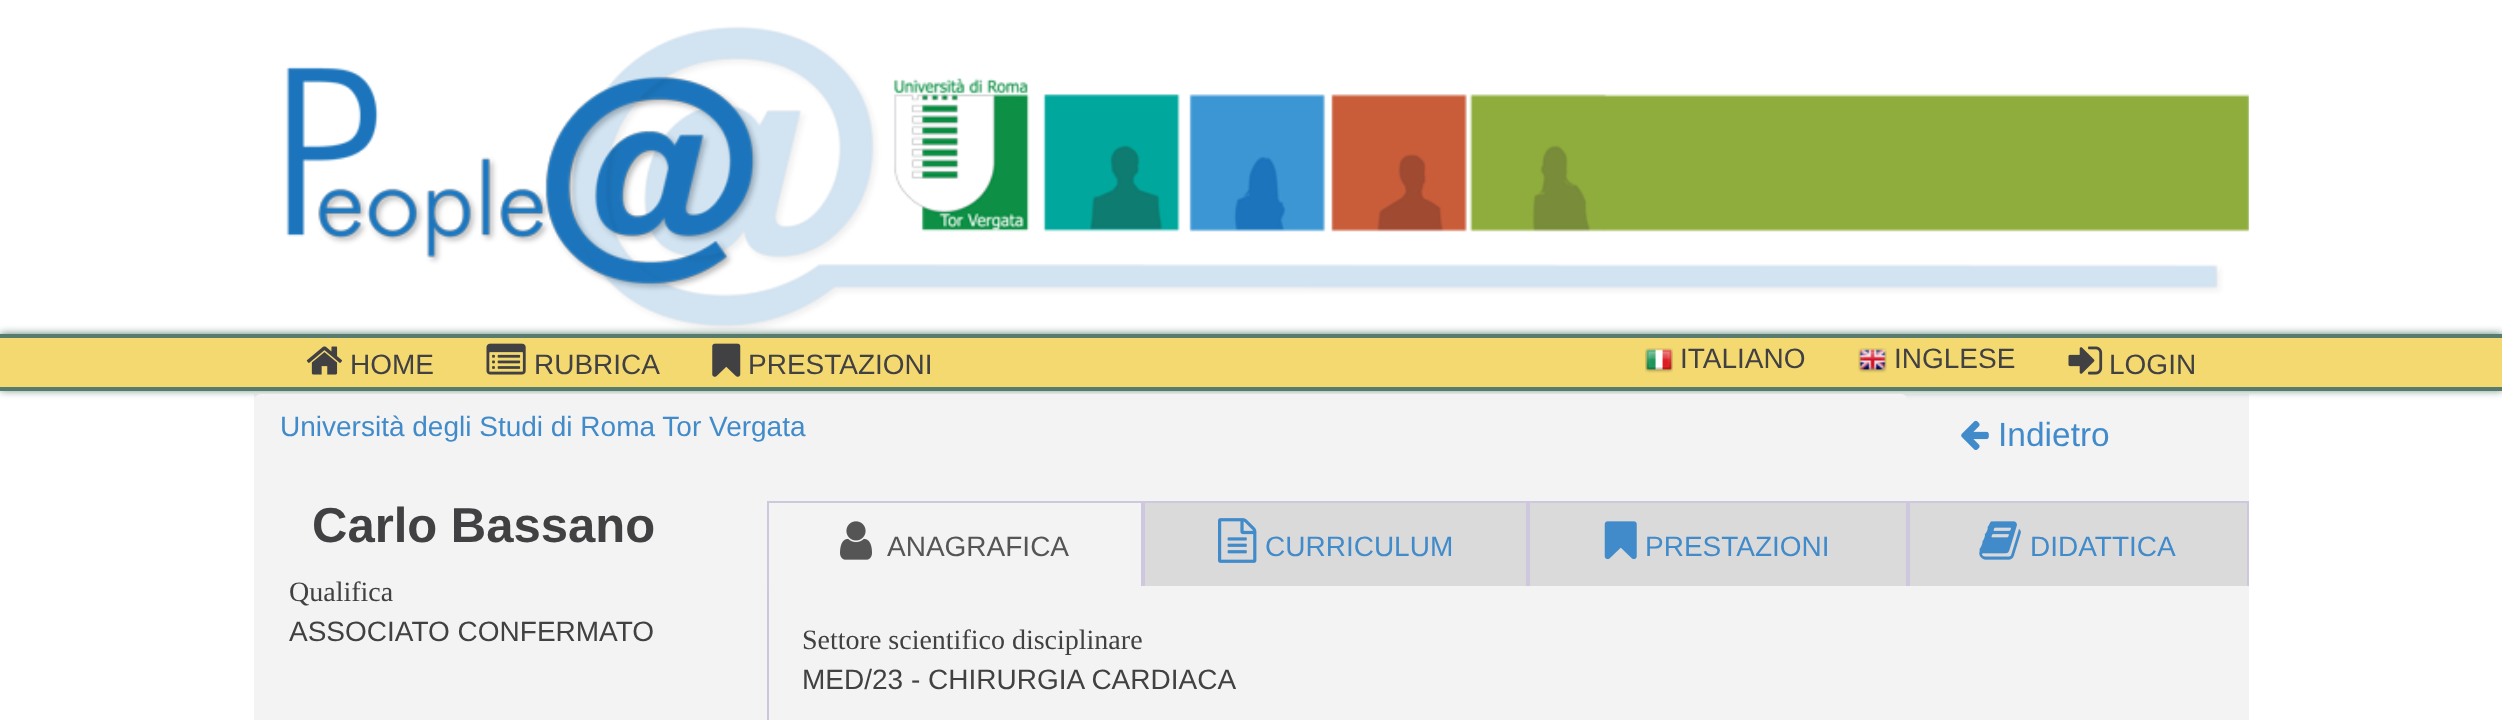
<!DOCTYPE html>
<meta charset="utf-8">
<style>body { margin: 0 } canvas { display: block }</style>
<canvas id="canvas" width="2502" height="720"></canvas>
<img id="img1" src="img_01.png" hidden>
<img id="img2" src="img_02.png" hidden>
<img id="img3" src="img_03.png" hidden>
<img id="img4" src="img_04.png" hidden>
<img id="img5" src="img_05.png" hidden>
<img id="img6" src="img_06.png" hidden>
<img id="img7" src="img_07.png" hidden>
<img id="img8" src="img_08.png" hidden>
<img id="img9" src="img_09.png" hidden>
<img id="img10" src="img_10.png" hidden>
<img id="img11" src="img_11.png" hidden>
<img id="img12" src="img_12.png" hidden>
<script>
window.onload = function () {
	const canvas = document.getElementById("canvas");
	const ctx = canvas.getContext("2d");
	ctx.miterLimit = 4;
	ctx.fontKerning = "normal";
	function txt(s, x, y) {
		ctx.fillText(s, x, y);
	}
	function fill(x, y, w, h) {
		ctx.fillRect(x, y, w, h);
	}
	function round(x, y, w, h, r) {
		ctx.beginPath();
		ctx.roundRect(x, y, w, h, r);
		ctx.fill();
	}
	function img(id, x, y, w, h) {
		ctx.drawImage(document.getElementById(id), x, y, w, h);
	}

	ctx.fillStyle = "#FFFFFF";
	fill(0, 0, 2502, 720);
	img("img1", 286, 26, 1963, 304);
	ctx.fillStyle = "#F3F3F3";
	fill(254, 394, 1995, 326);
	ctx.fillStyle = "#577C6D";
	ctx.filter = "blur(4.5px)";
	ctx.beginPath();
	ctx.rect(0, 334, 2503, 56);
	ctx.fill();
	ctx.filter = "none";
	ctx.fillStyle = "#F4D971";
	fill(0, 338, 2502, 49);
	ctx.fillStyle = "#577C6D";
	fill(0, 334, 2502, 4);
	fill(0, 387, 2502, 4);
	img("img2", 306, 346, 36, 29);
	img("img3", 486, 343, 40, 32);
	img("img4", 712, 343, 29, 34);
	img("img5", 1645, 348, 28, 25);
	img("img6", 1858, 348, 29, 25);
	img("img7", 2068, 346, 35, 29);
	ctx.fillStyle = "#F3F3F3";
	round(254, 394, 1654, 68, 7);
	img("img8", 1961, 420, 28, 30);
	ctx.fillStyle = "#CFC7DD";
	fill(767, 501, 1482, 2);
	fill(1141, 501, 4, 85);
	fill(767, 501, 2, 85);
	img("img9", 840, 521, 32, 39);
	ctx.fillStyle = "#DADADA";
	fill(1145, 503, 381, 83);
	ctx.fillStyle = "#CFC7DD";
	fill(1526, 501, 4, 85);
	img("img10", 1218, 518, 39, 45);
	ctx.fillStyle = "#DADADA";
	fill(1530, 503, 376, 83);
	ctx.fillStyle = "#CFC7DD";
	fill(1906, 501, 4, 85);
	img("img11", 1604, 521, 33, 39);
	ctx.fillStyle = "#DADADA";
	fill(1910, 503, 337, 83);
	ctx.fillStyle = "#CFC7DD";
	fill(2247, 501, 2, 85);
	img("img12", 1979, 521, 42, 39);
	ctx.fillStyle = "#CCC5DB";
	fill(767, 586, 2, 134);
	ctx.font = "28px Liberation Sans";
	ctx.fillStyle = "#414042";
	txt("HOME", 350, 374);
	txt("RUBRICA", 534, 374);
	txt("PRESTAZIONI", 748, 374);
	txt("ITALIANO", 1680, 368);
	txt("INGLESE", 1894, 368);
	txt("LOGIN", 2109, 374);
	ctx.fillStyle = "#428BCA";
	txt("Università degli Studi di Roma Tor Vergata", 280, 436);
	ctx.font = "33.5px Liberation Sans";
	txt("Indietro", 1998, 446);
	ctx.font = "bold 49px Liberation Sans";
	ctx.fillStyle = "#414042";
	txt("Carlo Bassano", 312, 542);
	ctx.font = "28px Liberation Serif";
	txt("Qualifica", 289, 601);
	ctx.font = "28px Liberation Sans";
	txt("ASSOCIATO CONFERMATO", 289, 641);
	ctx.fillStyle = "#555555";
	txt("ANAGRAFICA", 887, 556);
	ctx.fillStyle = "#428BCA";
	txt("CURRICULUM", 1265, 556);
	txt("PRESTAZIONI", 1645, 556);
	txt("DIDATTICA", 2030, 556);
	ctx.font = "28px Liberation Serif";
	ctx.fillStyle = "#414042";
	txt("Settore scientifico disciplinare", 802, 649);
	ctx.font = "28px Liberation Sans";
	txt("MED/23 - CHIRURGIA CARDIACA", 802, 689);
};
</script>
